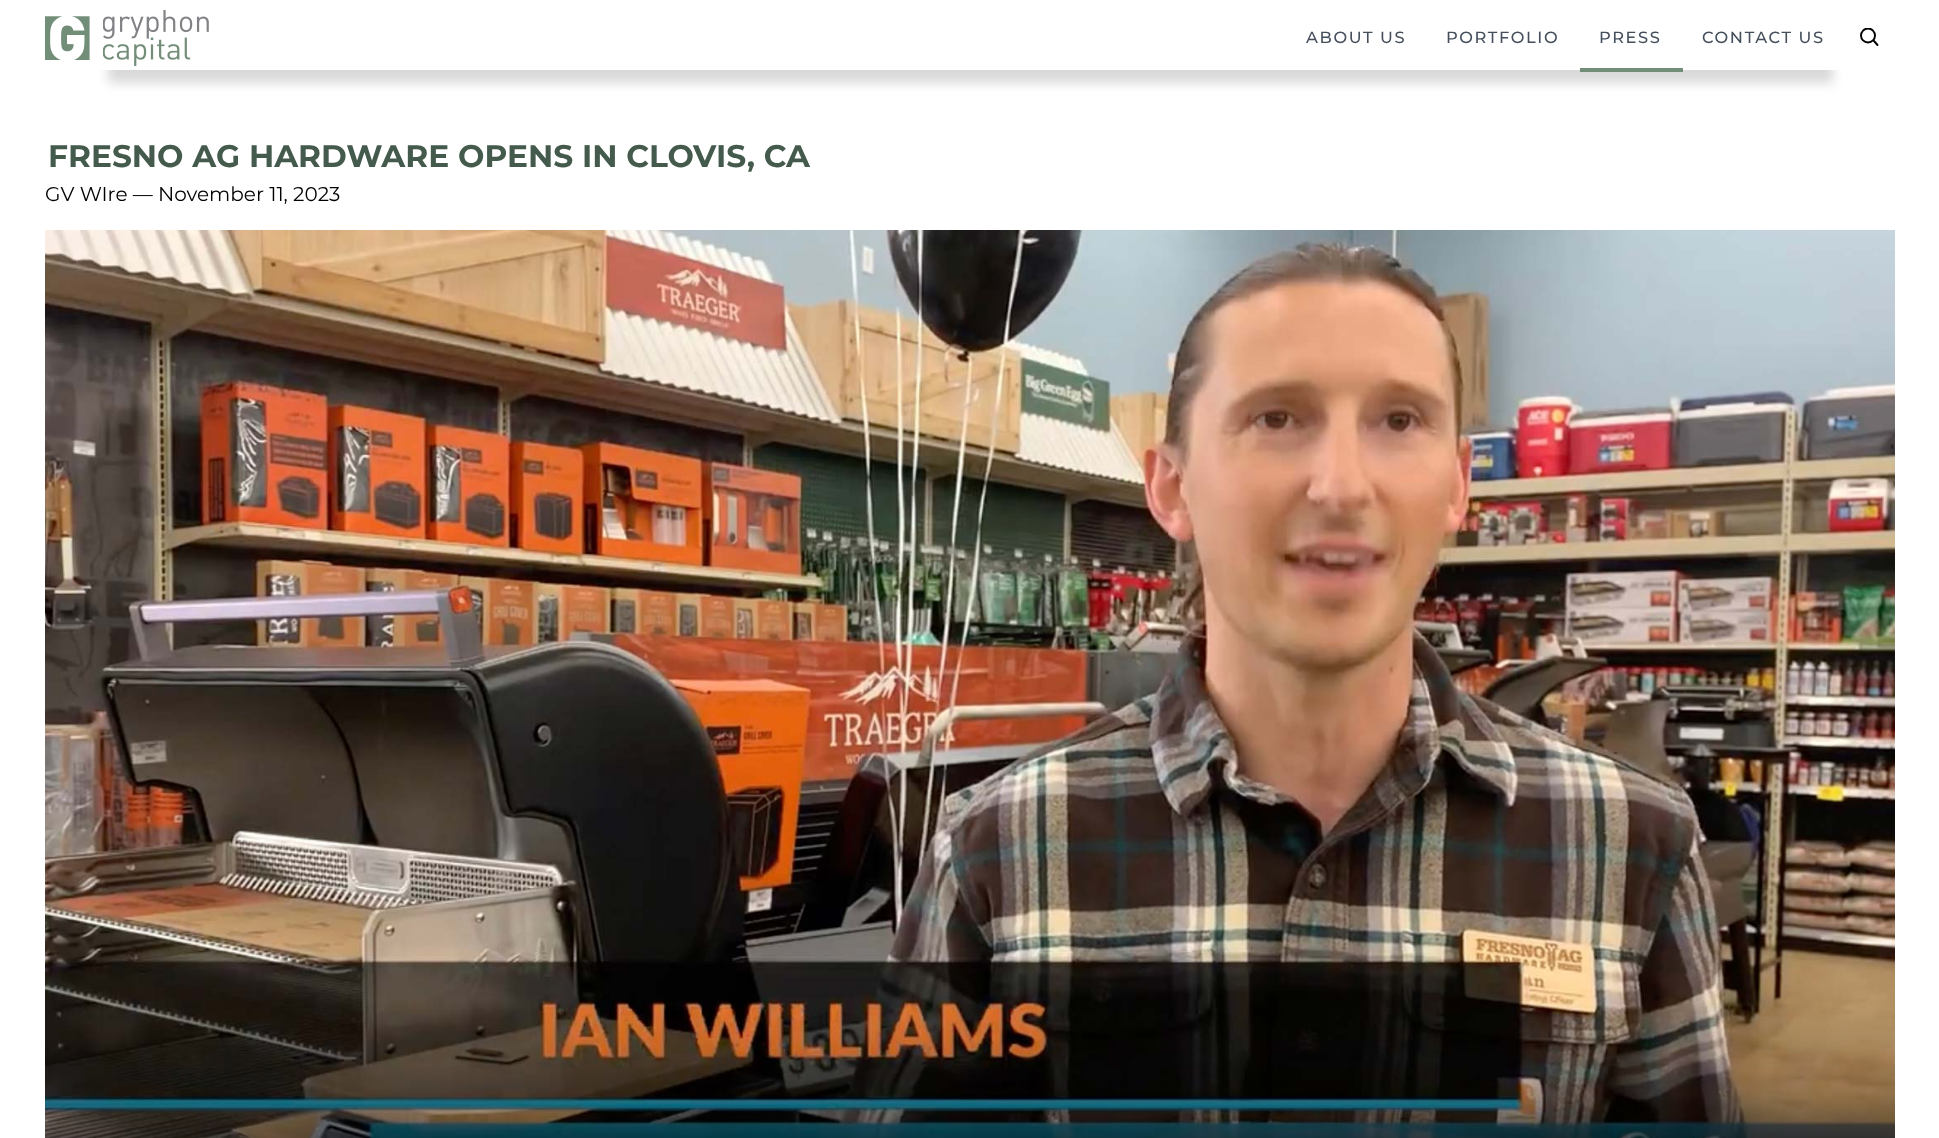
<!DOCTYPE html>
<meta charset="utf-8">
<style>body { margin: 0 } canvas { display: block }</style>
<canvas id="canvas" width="1939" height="1138"></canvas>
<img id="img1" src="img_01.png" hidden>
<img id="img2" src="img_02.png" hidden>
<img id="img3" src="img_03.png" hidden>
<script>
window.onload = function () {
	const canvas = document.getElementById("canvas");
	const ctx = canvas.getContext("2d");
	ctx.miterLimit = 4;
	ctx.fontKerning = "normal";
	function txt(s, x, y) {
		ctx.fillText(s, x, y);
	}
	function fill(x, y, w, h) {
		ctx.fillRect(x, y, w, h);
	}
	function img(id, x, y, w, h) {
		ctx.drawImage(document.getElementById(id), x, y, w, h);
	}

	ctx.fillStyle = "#FFFFFF";
	fill(0, 0, 1939, 1138);
	img("img1", 45, 16, 45, 44);
	ctx.save();
	ctx.beginPath();
	ctx.rect(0, 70, 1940, 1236);
	ctx.clip();
	ctx.fillStyle = "rgba(179, 179, 179, 0.5)";
	ctx.filter = "blur(5.5px)";
	ctx.beginPath();
	ctx.rect(108, 38, 1725, 45);
	ctx.fill();
	ctx.filter = "none";
	ctx.restore();
	img("img2", 103, 10, 106, 56);
	ctx.save();
	ctx.beginPath();
	ctx.rect(1860, 28, 19, 18);
	ctx.clip();
	ctx.beginPath();
	ctx.arc(1868, 35.5, 7, 0, Math.PI * 2);
	ctx.strokeStyle = "#000000";
	ctx.lineWidth = 1.9;
	ctx.stroke();
	ctx.restore();
	ctx.beginPath();
	ctx.moveTo(1874, 41);
	ctx.lineTo(1877.5, 45);
	ctx.strokeStyle = "#000000";
	ctx.lineWidth = 1.9;
	ctx.lineCap = "round";
	ctx.lineJoin = "round";
	ctx.stroke();
	ctx.fillStyle = "#728D78";
	fill(1580, 68, 103, 4);
	img("img3", 45, 230, 1850, 908);
	ctx.letterSpacing = "1.6px";
	ctx.font = "500 16.25px Montserrat";
	ctx.fillStyle = "#454F5B";
	txt("ABOUT US", 1306, 43);
	txt("PORTFOLIO", 1446, 43);
	txt("PRESS", 1599, 43);
	txt("CONTACT US", 1702, 43);
	ctx.letterSpacing = "0px";
	ctx.font = "bold 31.25px Montserrat";
	ctx.fillStyle = "#445A4D";
	txt("FRESNO AG HARDWARE OPENS IN CLOVIS, CA", 48, 167);
	ctx.font = "20px Montserrat";
	ctx.fillStyle = "#000000";
	txt("GV WIre — November 11, 2023", 45, 201);
};
</script>
